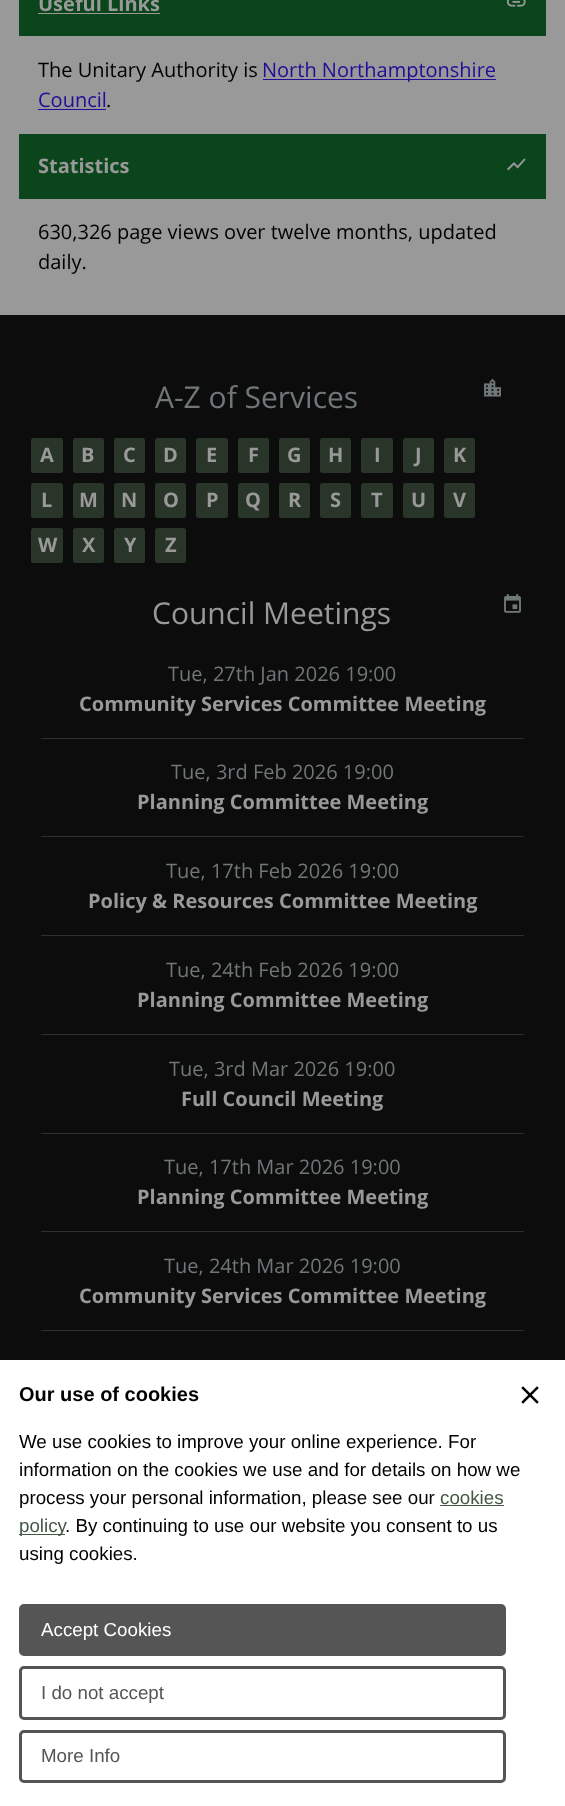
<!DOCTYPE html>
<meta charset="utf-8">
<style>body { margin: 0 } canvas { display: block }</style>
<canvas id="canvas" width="565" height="1806"></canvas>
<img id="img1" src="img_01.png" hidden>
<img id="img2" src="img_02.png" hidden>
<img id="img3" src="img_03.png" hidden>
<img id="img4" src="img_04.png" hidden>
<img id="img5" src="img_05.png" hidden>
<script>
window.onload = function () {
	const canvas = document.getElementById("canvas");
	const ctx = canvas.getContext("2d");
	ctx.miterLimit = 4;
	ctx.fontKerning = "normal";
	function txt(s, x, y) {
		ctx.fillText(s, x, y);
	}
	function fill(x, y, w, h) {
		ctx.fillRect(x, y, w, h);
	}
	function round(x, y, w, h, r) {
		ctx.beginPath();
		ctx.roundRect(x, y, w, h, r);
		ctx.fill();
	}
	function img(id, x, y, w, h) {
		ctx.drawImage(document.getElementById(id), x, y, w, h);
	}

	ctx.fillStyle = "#999999";
	fill(0, 0, 565, 1806);
	ctx.fillStyle = "#0A451C";
	fill(19, 0, 527, 36);
	ctx.fillStyle = "#999999";
	fill(38, 13, 122, 1);
	img("img1", 506, 0, 20, 7);
	ctx.fillStyle = "#220C99";
	fill(263, 79, 233, 1);
	fill(38, 109, 68, 1);
	ctx.fillStyle = "#0A451C";
	fill(19, 134, 527, 65);
	img("img2", 507, 158, 19, 13);
	ctx.fillStyle = "#0C0C0C";
	fill(0, 315, 565, 1045);
	img("img3", 484, 378, 17, 19);
	ctx.fillStyle = "#283528";
	round(31, 438, 32, 35, 2.5);
	round(73, 438, 31, 35, 2.5);
	round(114, 438, 31, 35, 2.5);
	round(155, 438, 31, 35, 2.5);
	round(196, 438, 32, 35, 2.5);
	round(238, 438, 31, 35, 2.5);
	round(279, 438, 31, 35, 2.5);
	round(320, 438, 31, 35, 2.5);
	round(361, 438, 32, 35, 2.5);
	round(403, 438, 31, 35, 2.5);
	round(444, 438, 31, 35, 2.5);
	round(31, 483, 32, 35, 2.5);
	round(73, 483, 31, 35, 2.5);
	round(114, 483, 31, 35, 2.5);
	round(155, 483, 31, 35, 2.5);
	round(196, 483, 32, 35, 2.5);
	round(238, 483, 31, 35, 2.5);
	round(279, 483, 31, 35, 2.5);
	round(320, 483, 31, 35, 2.5);
	round(361, 483, 32, 35, 2.5);
	round(403, 483, 31, 35, 2.5);
	round(444, 483, 31, 35, 2.5);
	round(31, 528, 32, 35, 2.5);
	round(73, 528, 31, 35, 2.5);
	round(114, 528, 31, 35, 2.5);
	round(155, 528, 31, 35, 2.5);
	img("img4", 504, 594, 17, 19);
	ctx.fillStyle = "#2F2F2F";
	fill(41, 738, 483, 1);
	fill(41, 836, 483, 1);
	fill(41, 935, 483, 1);
	fill(41, 1034, 483, 1);
	fill(41, 1133, 483, 1);
	fill(41, 1231, 483, 1);
	fill(41, 1330, 483, 1);
	ctx.fillStyle = "#FFFFFF";
	fill(0, 1360, 565, 446);
	img("img5", 521, 1386, 18, 18);
	ctx.fillStyle = "#425843";
	fill(440, 1505, 64, 1);
	fill(19, 1534, 46, 1);
	ctx.fillStyle = "#555555";
	ctx.beginPath();
	ctx.roundRect(20.5, 1605.5, 484, 49, 3.5);
	ctx.fill();
	ctx.strokeStyle = "#555555";
	ctx.lineWidth = 3;
	ctx.stroke();
	ctx.beginPath();
	ctx.roundRect(20.5, 1667.5, 484, 51, 3.5);
	ctx.stroke();
	ctx.beginPath();
	ctx.roundRect(20.5, 1731.5, 484, 50, 3.5);
	ctx.stroke();
	ctx.font = "bold 20px Open Sans";
	ctx.fillStyle = "#999999";
	txt("Useful Links", 38, 11);
	ctx.font = "20px Open Sans";
	ctx.fillStyle = "#000000";
	txt("The Unitary Authority is", 38, 77);
	ctx.fillStyle = "#220C99";
	txt("North Northamptonshire", 262, 77);
	txt("Council", 38, 107);
	ctx.fillStyle = "#000000";
	txt(".", 106, 107);
	ctx.font = "bold 20px Open Sans";
	ctx.fillStyle = "#999999";
	txt("Statistics", 38, 173);
	ctx.font = "20px Open Sans";
	ctx.fillStyle = "#000000";
	txt("630,326 page views over twelve months, updated", 38, 239);
	txt("daily.", 38, 269);
	ctx.font = "30px Open Sans";
	ctx.fillStyle = "#707779";
	txt("A-Z of Services", 155, 408);
	ctx.font = "bold 20px Open Sans";
	ctx.fillStyle = "#999999";
	txt("A", 40, 462);
	txt("B", 81, 462);
	txt("C", 123, 462);
	txt("D", 163, 462);
	txt("E", 206, 462);
	txt("F", 248, 462);
	txt("G", 287, 462);
	txt("H", 328, 462);
	txt("I", 374, 462);
	txt("J", 415, 462);
	txt("K", 453, 462);
	txt("L", 41, 507);
	txt("M", 79, 507);
	txt("N", 121, 507);
	txt("O", 163, 507);
	txt("P", 206, 507);
	txt("Q", 245, 507);
	txt("R", 288, 507);
	txt("S", 330, 507);
	txt("T", 371, 507);
	txt("U", 411, 507);
	txt("V", 453, 507);
	txt("W", 38, 552);
	txt("X", 82, 552);
	txt("Y", 124, 552);
	txt("Z", 165, 552);
	ctx.font = "30px Open Sans";
	txt("Council Meetings", 152, 624);
	ctx.font = "20px Open Sans";
	ctx.fillStyle = "#707779";
	txt("Tue, 27th Jan 2026 19:00", 168, 681);
	ctx.font = "bold 20px Open Sans";
	ctx.fillStyle = "#999999";
	txt("Community Services Committee Meeting", 79, 711);
	ctx.font = "20px Open Sans";
	ctx.fillStyle = "#707779";
	txt("Tue, 3rd Feb 2026 19:00", 171, 779);
	ctx.font = "bold 20px Open Sans";
	ctx.fillStyle = "#999999";
	txt("Planning Committee Meeting", 137, 809);
	ctx.font = "20px Open Sans";
	ctx.fillStyle = "#707779";
	txt("Tue, 17th Feb 2026 19:00", 166, 878);
	ctx.font = "bold 20px Open Sans";
	ctx.fillStyle = "#999999";
	txt("Policy & Resources Committee Meeting", 88, 908);
	ctx.font = "20px Open Sans";
	ctx.fillStyle = "#707779";
	txt("Tue, 24th Feb 2026 19:00", 166, 977);
	ctx.font = "bold 20px Open Sans";
	ctx.fillStyle = "#999999";
	txt("Planning Committee Meeting", 137, 1007);
	ctx.font = "20px Open Sans";
	ctx.fillStyle = "#707779";
	txt("Tue, 3rd Mar 2026 19:00", 169, 1076);
	ctx.font = "bold 20px Open Sans";
	ctx.fillStyle = "#999999";
	txt("Full Council Meeting", 181, 1106);
	ctx.font = "20px Open Sans";
	ctx.fillStyle = "#707779";
	txt("Tue, 17th Mar 2026 19:00", 164, 1174);
	ctx.font = "bold 20px Open Sans";
	ctx.fillStyle = "#999999";
	txt("Planning Committee Meeting", 137, 1204);
	ctx.font = "20px Open Sans";
	ctx.fillStyle = "#707779";
	txt("Tue, 24th Mar 2026 19:00", 164, 1273);
	ctx.font = "bold 20px Open Sans";
	ctx.fillStyle = "#999999";
	txt("Community Services Committee Meeting", 79, 1303);
	ctx.font = "bold 20px Liberation Sans";
	ctx.fillStyle = "#000000";
	txt("Our use of cookies", 19, 1401);
	ctx.font = "18.75px Liberation Sans";
	txt("We use cookies to improve your online experience. For", 19, 1448);
	txt("information on the cookies we use and for details on how we", 19, 1476);
	txt("process your personal information, please see our", 19, 1504);
	ctx.fillStyle = "#425843";
	txt("cookies", 440, 1504);
	txt("policy", 19, 1532);
	ctx.fillStyle = "#000000";
	txt(". By continuing to use our website you consent to us", 65, 1532);
	txt("using cookies.", 19, 1560);
	ctx.fillStyle = "#FFFFFF";
	txt("Accept Cookies", 41, 1636);
	ctx.fillStyle = "#555555";
	txt("I do not accept", 41, 1699);
	txt("More Info", 41, 1762);
};
</script>
